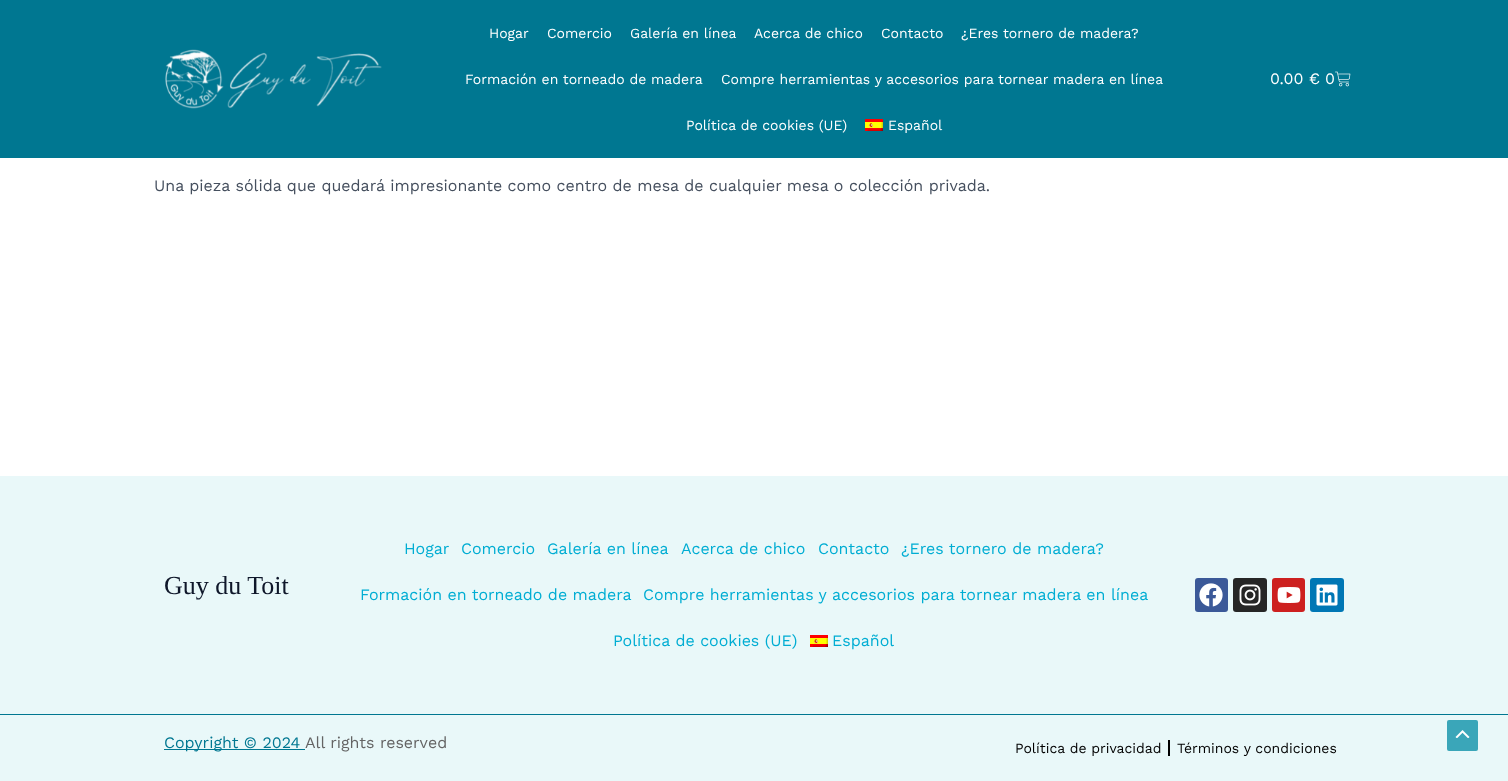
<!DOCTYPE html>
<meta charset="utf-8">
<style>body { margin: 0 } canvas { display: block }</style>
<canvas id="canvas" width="1508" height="781"></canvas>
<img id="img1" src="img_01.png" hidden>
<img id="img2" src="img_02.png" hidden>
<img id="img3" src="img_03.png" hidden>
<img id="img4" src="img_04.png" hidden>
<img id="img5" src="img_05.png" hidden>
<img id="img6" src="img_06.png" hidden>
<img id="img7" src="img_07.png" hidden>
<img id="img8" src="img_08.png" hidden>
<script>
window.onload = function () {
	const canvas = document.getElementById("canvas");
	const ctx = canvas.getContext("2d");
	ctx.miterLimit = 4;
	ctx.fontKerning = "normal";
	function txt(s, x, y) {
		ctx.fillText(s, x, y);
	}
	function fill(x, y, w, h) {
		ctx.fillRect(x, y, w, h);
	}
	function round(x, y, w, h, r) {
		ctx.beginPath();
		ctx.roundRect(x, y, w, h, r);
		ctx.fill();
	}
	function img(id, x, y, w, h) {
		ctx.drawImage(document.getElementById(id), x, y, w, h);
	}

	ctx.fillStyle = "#FFFFFF";
	fill(0, 0, 1508, 781);
	ctx.fillStyle = "#007791";
	fill(0, 0, 1508, 158);
	img("img1", 165, 49, 217, 60);
	img("img2", 865, 119, 18, 12);
	img("img3", 1335, 71, 16, 16);
	ctx.fillStyle = "#E9F8F9";
	fill(0, 476, 1508, 238);
	img("img2", 810, 635, 18, 12);
	ctx.fillStyle = "#3B5998";
	round(1195, 578, 33, 34, 3);
	img("img4", 1199, 583, 24, 24);
	ctx.fillStyle = "#262626";
	round(1233, 578, 34, 34, 3);
	img("img5", 1239, 584, 22, 22);
	ctx.fillStyle = "#CD201F";
	round(1272, 578, 33, 34, 3);
	img("img6", 1277, 587, 24, 16);
	ctx.fillStyle = "#0077B5";
	round(1310, 578, 34, 34, 3);
	img("img7", 1316, 584, 22, 22);
	ctx.fillStyle = "#E9F8F9";
	fill(0, 715, 1508, 66);
	ctx.fillStyle = "#007791";
	fill(0, 714, 1508, 1);
	fill(164, 749, 141, 1);
	ctx.fillStyle = "#000000";
	fill(1168, 740, 2, 16);
	ctx.fillStyle = "#3AA6B9";
	round(1447, 720, 31, 31, 2);
	img("img8", 1455, 730, 15, 8);
	ctx.font = "14px Work Sans";
	ctx.fillStyle = "#FFFFFF";
	txt("Hogar", 489, 38);
	txt("Comercio", 547, 38);
	txt("Galería en línea", 630, 38);
	txt("Acerca de chico", 754, 38);
	txt("Contacto", 881, 38);
	txt("¿Eres tornero de madera?", 961, 38);
	txt("Formación en torneado de madera", 465, 84);
	txt("Compre herramientas y accesorios para tornear madera en línea", 721, 84);
	txt("Política de cookies (UE)", 686, 130);
	txt("Español", 888, 130);
	ctx.font = "16px Work Sans";
	txt("0.00 €", 1270, 84);
	txt("0", 1325, 84);
	ctx.fillStyle = "#454F5E";
	txt("Una pieza sólida que quedará impresionante como centro de mesa de cualquier mesa o colección privada.", 154, 191);
	ctx.font = "26px Liberation Serif";
	ctx.fillStyle = "#0F172A";
	txt("Guy du Toit", 164, 594);
	ctx.font = "16px Work Sans";
	ctx.fillStyle = "#00ADD3";
	txt("Hogar", 404, 554);
	txt("Comercio", 461, 554);
	txt("Galería en línea", 547, 554);
	txt("Acerca de chico", 681, 554);
	txt("Contacto", 818, 554);
	txt("¿Eres tornero de madera?", 901, 554);
	txt("Formación en torneado de madera", 360, 600);
	txt("Compre herramientas y accesorios para tornear madera en línea", 643, 600);
	txt("Política de cookies (UE)", 613, 646);
	txt("Español", 832, 646);
	ctx.fillStyle = "#007791";
	txt("Copyright © 2024", 164, 748);
	ctx.fillStyle = "#646464";
	txt("All rights reserved", 305, 748);
	ctx.font = "14px Work Sans";
	ctx.fillStyle = "#000000";
	txt("Política de privacidad", 1015, 753);
	txt("Términos y condiciones", 1177, 753);
};
</script>
